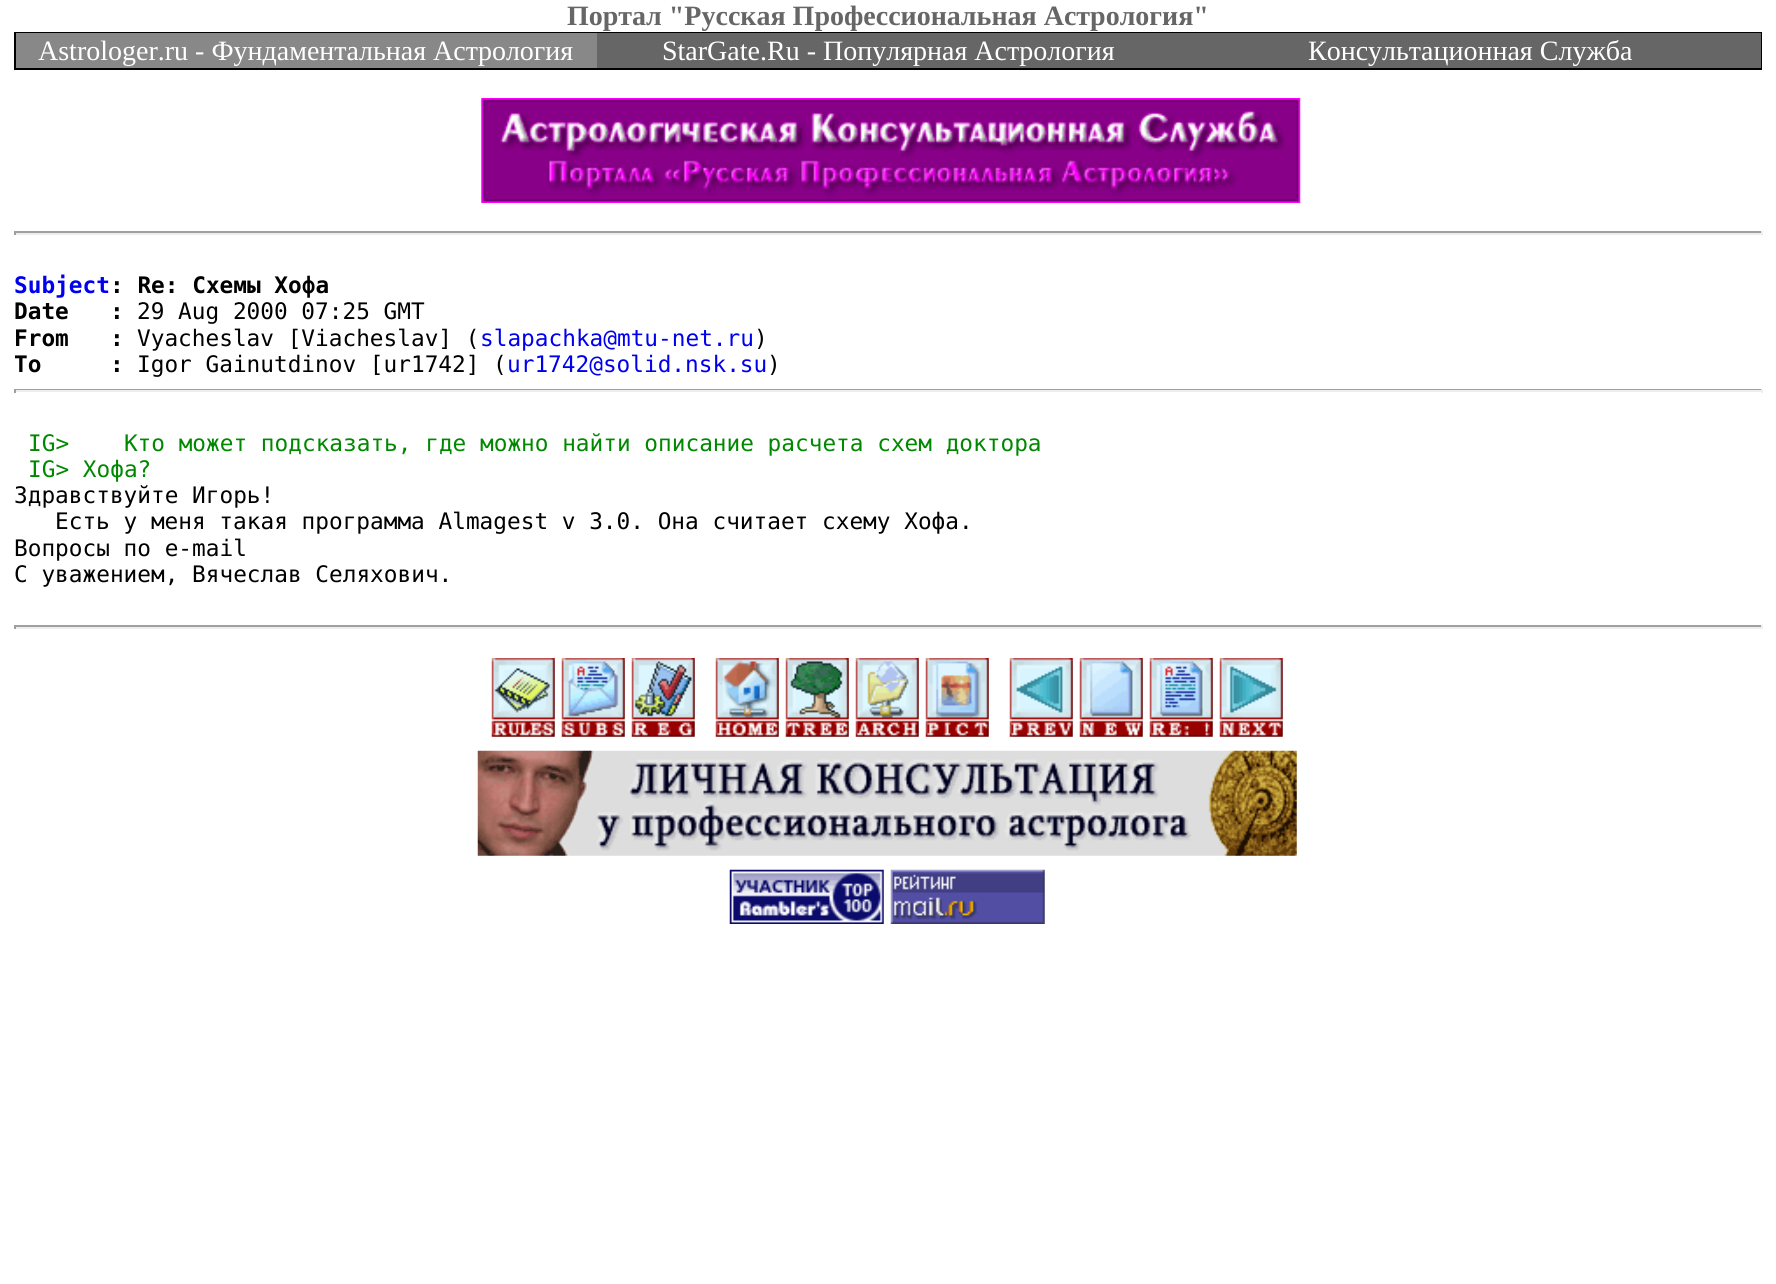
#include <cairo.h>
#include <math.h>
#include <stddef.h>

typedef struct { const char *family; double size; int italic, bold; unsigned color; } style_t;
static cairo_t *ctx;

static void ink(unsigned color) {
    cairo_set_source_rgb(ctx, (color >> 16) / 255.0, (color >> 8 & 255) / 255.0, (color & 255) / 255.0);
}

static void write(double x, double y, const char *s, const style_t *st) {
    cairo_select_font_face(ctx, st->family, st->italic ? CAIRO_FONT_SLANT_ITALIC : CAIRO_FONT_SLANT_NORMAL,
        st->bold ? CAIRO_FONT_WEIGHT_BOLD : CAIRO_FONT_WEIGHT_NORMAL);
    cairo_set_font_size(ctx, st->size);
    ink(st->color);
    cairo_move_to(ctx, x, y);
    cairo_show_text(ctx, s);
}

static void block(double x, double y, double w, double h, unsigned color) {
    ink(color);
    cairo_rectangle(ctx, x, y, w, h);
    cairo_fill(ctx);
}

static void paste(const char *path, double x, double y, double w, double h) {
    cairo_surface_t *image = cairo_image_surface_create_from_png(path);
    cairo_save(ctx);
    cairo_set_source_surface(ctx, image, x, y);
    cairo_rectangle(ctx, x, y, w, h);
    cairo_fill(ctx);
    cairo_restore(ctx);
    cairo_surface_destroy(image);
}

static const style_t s1 = {"Liberation Serif", 28, 0, 1, 0x666666};
static const style_t s2 = {"Liberation Serif", 28, 0, 0, 0xffffff};
static const style_t s3 = {"DejaVu Sans Mono", 22.75, 0, 1, 0x0000ee};
static const style_t s4 = {"DejaVu Sans Mono", 22.75, 0, 1, 0x000000};
static const style_t s5 = {"DejaVu Sans Mono", 22.75, 0, 0, 0x000000};
static const style_t s6 = {"DejaVu Sans Mono", 22.75, 0, 0, 0x0000ee};
static const style_t s7 = {"DejaVu Sans Mono", 22.75, 0, 0, 0x008800};

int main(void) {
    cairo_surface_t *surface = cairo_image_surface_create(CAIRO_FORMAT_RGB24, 1776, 1284);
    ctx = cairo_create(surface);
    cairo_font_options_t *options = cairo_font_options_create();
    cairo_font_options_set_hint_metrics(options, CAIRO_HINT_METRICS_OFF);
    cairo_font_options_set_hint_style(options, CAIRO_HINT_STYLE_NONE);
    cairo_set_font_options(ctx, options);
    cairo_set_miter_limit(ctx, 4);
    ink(0xffffff);
    cairo_paint(ctx);
    write(567, 25, "Портал \"Русская Профессиональная Астрология\"", &s1);
    block(14, 32, 1748, 38, 0x000000);
    block(597, 33, 1164, 35, 0x666666);
    block(16, 33, 581, 35, 0x888888);
    write(38, 60, "Astrologer.ru - Фундаментальная Астрология", &s2);
    write(662, 60, "StarGate.Ru - Популярная Астрология", &s2);
    write(1308, 60, "Консультационная Служба", &s2);
    paste("pic1.png", 481, 98, 820, 105);
    block(14, 231, 1748, 2, 0x9f9f9f);
    block(1761, 231, 2, 4, 0xeeeeee);
    block(14, 233, 1748, 2, 0xeeeeee);
    block(14, 231, 2, 4, 0x9f9f9f);
    write(14, 293, "Subject", &s3);
    write(110, 293, ": Re: Схемы Хофа", &s4);
    write(14, 319, "Date   :", &s4);
    write(137, 319, "29 Aug 2000 07:25 GMT", &s5);
    write(14, 346, "From   :", &s4);
    write(137, 346, "Vyacheslav [Viacheslav] (", &s5);
    write(480, 346, "slapachka@mtu-net.ru", &s6);
    write(754, 346, ")", &s5);
    write(14, 372, "To     :", &s4);
    write(137, 372, "Igor Gainutdinov [ur1742] (", &s5);
    write(507, 372, "ur1742@solid.nsk.su", &s6);
    write(767, 372, ")", &s5);
    block(14, 389, 1748, 1, 0x9f9f9f);
    block(1761, 389, 2, 4, 0xeeeeee);
    block(14, 390, 1748, 2, 0xeeeeee);
    block(14, 389, 2, 4, 0x9f9f9f);
    write(28, 451, "IG>    Кто может подсказать, где можно найти описание расчета схем доктора", &s7);
    write(28, 477, "IG> Хофа?", &s7);
    write(14, 503, "Здравствуйте Игорь!", &s5);
    write(55, 529, "Есть у меня такая программа Almagest v 3.0. Она считает схему Хофа.", &s5);
    write(14, 556, "Вопросы по e-mail", &s5);
    write(14, 582, "С уважением, Вячеслав Селяхович.", &s5);
    block(14, 625, 1748, 2, 0x9f9f9f);
    block(1761, 625, 2, 4, 0xeeeeee);
    block(14, 627, 1748, 2, 0xeeeeee);
    block(14, 625, 2, 4, 0x9f9f9f);
    paste("pic2.png", 491, 658, 64, 79);
    paste("pic3.png", 561, 658, 64, 79);
    paste("pic4.png", 631, 658, 64, 79);
    paste("pic5.png", 715, 658, 64, 79);
    paste("pic6.png", 785, 658, 64, 79);
    paste("pic7.png", 855, 658, 64, 79);
    paste("pic8.png", 925, 658, 64, 79);
    paste("pic9.png", 1009, 658, 64, 79);
    paste("pic10.png", 1079, 658, 64, 79);
    paste("pic11.png", 1149, 658, 64, 79);
    paste("pic12.png", 1219, 658, 64, 79);
    paste("pic13.png", 477, 750, 820, 106);
    paste("pic14.png", 729, 869, 155, 55);
    paste("pic15.png", 890, 869, 155, 55);
    cairo_surface_write_to_png(surface, "screenshot.png");
    cairo_font_options_destroy(options);
    cairo_destroy(ctx);
    cairo_surface_destroy(surface);
    return 0;
}
